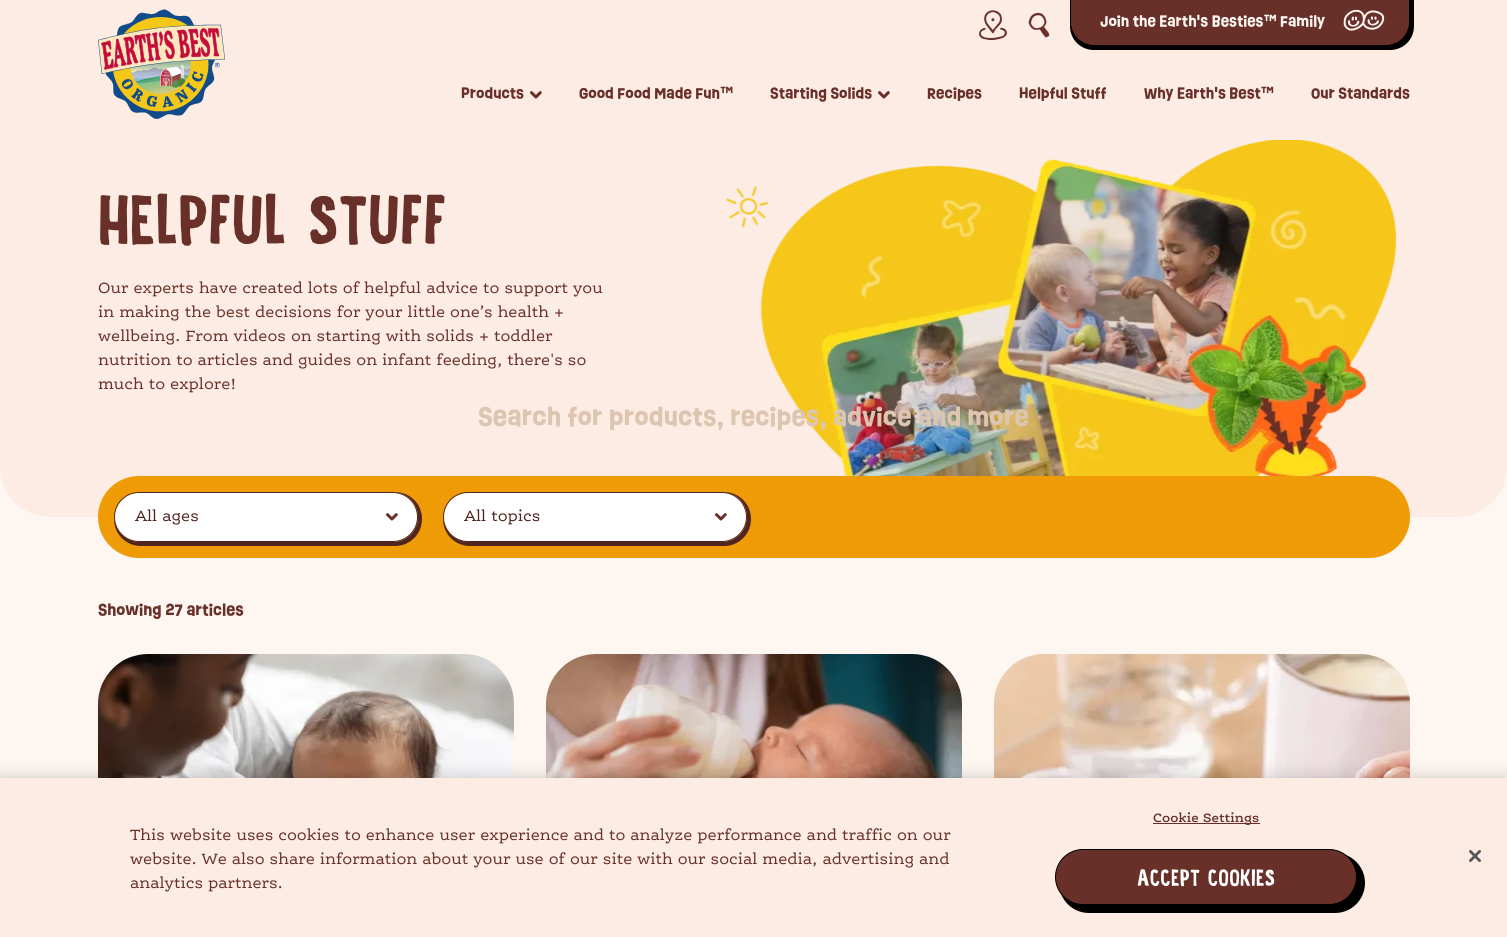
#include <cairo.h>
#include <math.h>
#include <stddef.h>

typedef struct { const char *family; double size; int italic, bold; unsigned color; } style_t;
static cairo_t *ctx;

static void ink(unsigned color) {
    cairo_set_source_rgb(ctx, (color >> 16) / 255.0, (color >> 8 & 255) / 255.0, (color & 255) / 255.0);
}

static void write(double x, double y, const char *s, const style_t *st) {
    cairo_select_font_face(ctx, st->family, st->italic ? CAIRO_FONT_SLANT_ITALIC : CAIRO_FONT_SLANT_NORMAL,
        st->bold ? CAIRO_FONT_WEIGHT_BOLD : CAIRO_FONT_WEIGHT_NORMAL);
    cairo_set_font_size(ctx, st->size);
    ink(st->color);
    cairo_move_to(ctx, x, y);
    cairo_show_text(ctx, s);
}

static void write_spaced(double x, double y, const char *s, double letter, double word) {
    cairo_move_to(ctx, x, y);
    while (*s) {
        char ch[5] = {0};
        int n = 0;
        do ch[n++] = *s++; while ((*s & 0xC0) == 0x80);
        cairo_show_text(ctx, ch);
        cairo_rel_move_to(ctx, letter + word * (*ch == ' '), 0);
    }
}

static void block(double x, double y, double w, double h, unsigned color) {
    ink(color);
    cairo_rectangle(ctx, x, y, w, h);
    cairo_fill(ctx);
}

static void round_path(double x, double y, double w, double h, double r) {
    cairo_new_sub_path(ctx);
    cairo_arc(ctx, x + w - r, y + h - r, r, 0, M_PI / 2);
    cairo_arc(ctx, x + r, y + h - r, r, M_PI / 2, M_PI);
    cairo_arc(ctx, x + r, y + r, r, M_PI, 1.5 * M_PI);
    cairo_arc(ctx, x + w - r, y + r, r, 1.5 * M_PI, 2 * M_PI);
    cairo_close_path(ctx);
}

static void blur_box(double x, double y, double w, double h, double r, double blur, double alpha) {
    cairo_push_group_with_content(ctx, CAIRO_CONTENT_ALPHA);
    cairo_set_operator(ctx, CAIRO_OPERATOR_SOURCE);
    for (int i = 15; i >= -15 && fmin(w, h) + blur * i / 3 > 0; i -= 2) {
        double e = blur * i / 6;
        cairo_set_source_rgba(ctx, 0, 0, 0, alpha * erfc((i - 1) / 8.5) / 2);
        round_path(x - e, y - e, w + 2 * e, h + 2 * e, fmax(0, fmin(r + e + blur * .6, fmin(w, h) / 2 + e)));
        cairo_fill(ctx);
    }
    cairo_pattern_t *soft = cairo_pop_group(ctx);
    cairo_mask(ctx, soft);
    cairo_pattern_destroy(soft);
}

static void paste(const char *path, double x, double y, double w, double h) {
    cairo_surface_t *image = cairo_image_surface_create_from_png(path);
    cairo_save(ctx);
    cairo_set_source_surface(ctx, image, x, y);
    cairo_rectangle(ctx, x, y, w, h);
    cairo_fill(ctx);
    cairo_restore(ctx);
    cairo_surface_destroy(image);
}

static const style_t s1 = {"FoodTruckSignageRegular", 72, 0, 0, 0x683028};
static const style_t s2 = {"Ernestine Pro", 16, 0, 0, 0x683028};
static const style_t s3 = {"Ernestine Pro", 16, 0, 0, 0x51251f};
static const style_t s4 = {"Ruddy", 15, 0, 1, 0x683028};
static const style_t s5 = {"Ruddy", 14, 0, 1, 0xfdf6f1};
static const style_t s6 = {"Ruddy", 14, 0, 1, 0x683028};
static const style_t s7 = {"Ruddy", 24, 0, 1, 0xddc6b1};

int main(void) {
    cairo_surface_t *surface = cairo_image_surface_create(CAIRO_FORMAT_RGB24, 1507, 937);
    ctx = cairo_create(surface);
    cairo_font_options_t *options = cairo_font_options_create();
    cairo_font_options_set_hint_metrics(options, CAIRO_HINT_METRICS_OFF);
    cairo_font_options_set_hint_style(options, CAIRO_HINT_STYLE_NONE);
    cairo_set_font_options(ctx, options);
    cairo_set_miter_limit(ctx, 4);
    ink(0xfcece3);
    cairo_paint(ctx);
    block(0, 467, 1507, 311, 0xfdf6f1);
    ink(0xfcece3);
    cairo_new_path(ctx);
    cairo_move_to(ctx, 0, 137);
    cairo_line_to(ctx, 1507, 137);
    cairo_line_to(ctx, 1507, 467);
    cairo_curve_to(ctx, 1507, 494.5, 1484.5, 517, 1457, 517);
    cairo_line_to(ctx, 50, 517);
    cairo_curve_to(ctx, 22.5, 517, 0, 494.5, 0, 467);
    cairo_close_path(ctx);
    cairo_fill(ctx);
    write(98, 245, "HELPFUL STUFF", &s1);
    write(98, 293, "Our experts have created lots of helpful advice to support you", &s2);
    write(98, 317, "in making the best decisions for your little one’s health +", &s2);
    write(98, 341, "wellbeing. From videos on starting with solids + toddler", &s2);
    write(98, 365, "nutrition to articles and guides on infant feeding, there's so", &s2);
    write(98, 389, "much to explore!", &s2);
    paste("pic1.png", 725, 140, 672, 336);
    ink(0xef9b05);
    round_path(98, 476, 1312, 82, 41);
    cairo_fill(ctx);
    ink(0x51251f);
    cairo_new_path(ctx);
    cairo_move_to(ctx, 395, 492);
    cairo_line_to(ctx, 393, 492);
    cairo_curve_to(ctx, 407, 492, 418, 503, 418, 517);
    cairo_curve_to(ctx, 418, 531, 407, 542, 393, 542);
    cairo_line_to(ctx, 139, 542);
    cairo_curve_to(ctx, 126, 542, 115, 531, 114, 518);
    cairo_line_to(ctx, 114, 519);
    cairo_curve_to(ctx, 114, 534, 126, 546, 141, 546);
    cairo_line_to(ctx, 395, 546);
    cairo_curve_to(ctx, 410, 546, 422, 534, 422, 519);
    cairo_curve_to(ctx, 422, 504, 410, 492, 395, 492);
    cairo_close_path(ctx);
    cairo_fill(ctx);
    ink(0xffffff);
    round_path(114.5, 492.5, 303, 49, 24.5);
    cairo_fill_preserve(ctx);
    ink(0x51251f);
    cairo_set_line_width(ctx, 1);
    cairo_stroke(ctx);
    write(135, 521, "All ages", &s3);
    paste("pic2.png", 386, 513, 12, 8);
    cairo_new_path(ctx);
    cairo_move_to(ctx, 724, 492);
    cairo_line_to(ctx, 722, 492);
    cairo_curve_to(ctx, 736, 492, 747, 503, 747, 517);
    cairo_curve_to(ctx, 747, 531, 736, 542, 722, 542);
    cairo_line_to(ctx, 468, 542);
    cairo_curve_to(ctx, 455, 542, 444, 531, 443, 518);
    cairo_line_to(ctx, 443, 519);
    cairo_curve_to(ctx, 443, 534, 455, 546, 470, 546);
    cairo_line_to(ctx, 724, 546);
    cairo_curve_to(ctx, 739, 546, 751, 534, 751, 519);
    cairo_curve_to(ctx, 751, 504, 739, 492, 724, 492);
    cairo_close_path(ctx);
    cairo_fill(ctx);
    ink(0xffffff);
    round_path(443.5, 492.5, 303, 49, 24.5);
    cairo_fill_preserve(ctx);
    ink(0x51251f);
    cairo_stroke(ctx);
    write(464, 521, "All topics", &s3);
    paste("pic2.png", 715, 513, 12, 8);
    write(98, 615, "Showing 27 articles", &s4);
    ink(0xfcece3);
    round_path(98, 654, 416, 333, 50);
    cairo_fill(ctx);
    paste("pic3.png", 98, 654, 416, 124);
    round_path(546, 654, 416, 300, 50);
    cairo_fill(ctx);
    paste("pic4.png", 546, 654, 416, 124);
    round_path(994, 654, 416, 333, 50);
    cairo_fill(ctx);
    paste("pic5.png", 994, 654, 416, 124);
    paste("pic6.png", 98, 9, 127, 110);
    paste("pic7.png", 979, 10, 28, 31);
    paste("pic8.png", 1028, 12, 22, 26);
    ink(0x000000);
    cairo_new_path(ctx);
    cairo_move_to(ctx, 1070, -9);
    cairo_line_to(ctx, 1414, -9);
    cairo_line_to(ctx, 1414, 26);
    cairo_curve_to(ctx, 1414, 39.5, 1403.5, 50, 1390, 50);
    cairo_line_to(ctx, 1094, 50);
    cairo_curve_to(ctx, 1080.5, 50, 1070, 39.5, 1070, 26);
    cairo_close_path(ctx);
    cairo_fill(ctx);
    ink(0x683028);
    cairo_new_path(ctx);
    cairo_move_to(ctx, 1070.5, -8.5);
    cairo_line_to(ctx, 1409.5, -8.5);
    cairo_line_to(ctx, 1409.5, 22);
    cairo_curve_to(ctx, 1409.5, 35, 1399, 45.5, 1386, 45.5);
    cairo_line_to(ctx, 1094, 45.5);
    cairo_curve_to(ctx, 1081, 45.5, 1070.5, 35, 1070.5, 22);
    cairo_close_path(ctx);
    cairo_fill_preserve(ctx);
    ink(0x000000);
    cairo_stroke(ctx);
    write(1100, 26, "Join the Earth's Besties™ Family", &s5);
    paste("pic9.png", 1343, 9, 42, 22);
    write(461, 98, "Products", &s6);
    paste("pic10.png", 530, 91, 12, 8);
    write(579, 98, "Good Food Made Fun™", &s6);
    write(770, 98, "Starting Solids", &s6);
    paste("pic10.png", 878, 91, 12, 8);
    write(927, 98, "Recipes", &s6);
    write(1019, 98, "Helpful Stuff", &s6);
    write(1144, 98, "Why Earth's Best™", &s6);
    write(1311, 98, "Our Standards", &s6);
    write(478, 425, "Search for products, recipes, advice and more", &s7);
    ink(0x000000);
    blur_box(0, 778, 1507, 159, 0, 9, 0.2);
    block(0, 778, 1507, 159, 0xfcece3);
    write(130, 840, "This website uses cookies to enhance user experience and to analyze performance and traffic on our", &s2);
    write(130, 864, "website. We also share information about your use of our site with our social media, advertising and", &s2);
    write(130, 888, "analytics partners.", &s2);
    block(1153, 823, 107, 1, 0x683028);
    cairo_select_font_face(ctx, "Ernestine Pro SemiBold", CAIRO_FONT_SLANT_NORMAL, CAIRO_FONT_WEIGHT_NORMAL);
    cairo_set_font_size(ctx, 13);
    write_spaced(1153, 822, "Cookie Settings", 0.1, 0);
    ink(0x000000);
    round_path(1059, 853, 306, 60, 30);
    cairo_fill(ctx);
    ink(0x683028);
    round_path(1055.5, 849.5, 301, 55, 27.5);
    cairo_fill_preserve(ctx);
    ink(0x000000);
    cairo_stroke(ctx);
    cairo_select_font_face(ctx, "FoodTruckSignageRegular", CAIRO_FONT_SLANT_NORMAL, CAIRO_FONT_WEIGHT_NORMAL);
    cairo_set_font_size(ctx, 24);
    ink(0xffffff);
    write_spaced(1137, 886, "ACCEPT COOKIES", 0.25, 0);
    paste("pic11.png", 1469, 850, 12, 12);
    cairo_surface_write_to_png(surface, "screenshot.png");
    cairo_font_options_destroy(options);
    cairo_destroy(ctx);
    cairo_surface_destroy(surface);
    return 0;
}
